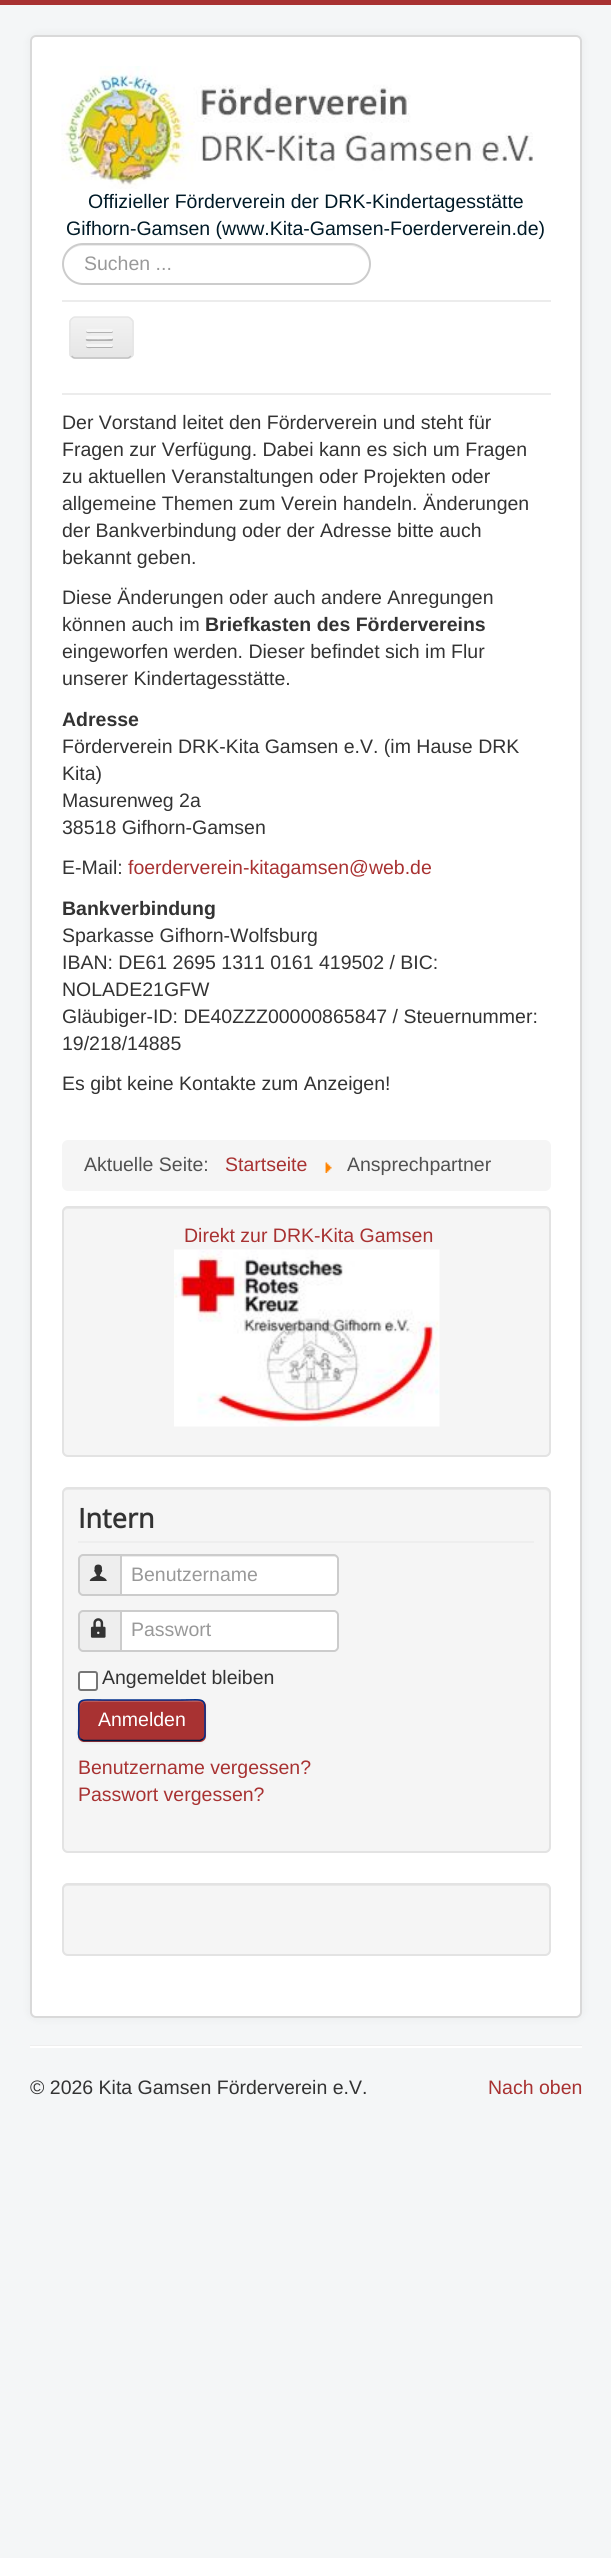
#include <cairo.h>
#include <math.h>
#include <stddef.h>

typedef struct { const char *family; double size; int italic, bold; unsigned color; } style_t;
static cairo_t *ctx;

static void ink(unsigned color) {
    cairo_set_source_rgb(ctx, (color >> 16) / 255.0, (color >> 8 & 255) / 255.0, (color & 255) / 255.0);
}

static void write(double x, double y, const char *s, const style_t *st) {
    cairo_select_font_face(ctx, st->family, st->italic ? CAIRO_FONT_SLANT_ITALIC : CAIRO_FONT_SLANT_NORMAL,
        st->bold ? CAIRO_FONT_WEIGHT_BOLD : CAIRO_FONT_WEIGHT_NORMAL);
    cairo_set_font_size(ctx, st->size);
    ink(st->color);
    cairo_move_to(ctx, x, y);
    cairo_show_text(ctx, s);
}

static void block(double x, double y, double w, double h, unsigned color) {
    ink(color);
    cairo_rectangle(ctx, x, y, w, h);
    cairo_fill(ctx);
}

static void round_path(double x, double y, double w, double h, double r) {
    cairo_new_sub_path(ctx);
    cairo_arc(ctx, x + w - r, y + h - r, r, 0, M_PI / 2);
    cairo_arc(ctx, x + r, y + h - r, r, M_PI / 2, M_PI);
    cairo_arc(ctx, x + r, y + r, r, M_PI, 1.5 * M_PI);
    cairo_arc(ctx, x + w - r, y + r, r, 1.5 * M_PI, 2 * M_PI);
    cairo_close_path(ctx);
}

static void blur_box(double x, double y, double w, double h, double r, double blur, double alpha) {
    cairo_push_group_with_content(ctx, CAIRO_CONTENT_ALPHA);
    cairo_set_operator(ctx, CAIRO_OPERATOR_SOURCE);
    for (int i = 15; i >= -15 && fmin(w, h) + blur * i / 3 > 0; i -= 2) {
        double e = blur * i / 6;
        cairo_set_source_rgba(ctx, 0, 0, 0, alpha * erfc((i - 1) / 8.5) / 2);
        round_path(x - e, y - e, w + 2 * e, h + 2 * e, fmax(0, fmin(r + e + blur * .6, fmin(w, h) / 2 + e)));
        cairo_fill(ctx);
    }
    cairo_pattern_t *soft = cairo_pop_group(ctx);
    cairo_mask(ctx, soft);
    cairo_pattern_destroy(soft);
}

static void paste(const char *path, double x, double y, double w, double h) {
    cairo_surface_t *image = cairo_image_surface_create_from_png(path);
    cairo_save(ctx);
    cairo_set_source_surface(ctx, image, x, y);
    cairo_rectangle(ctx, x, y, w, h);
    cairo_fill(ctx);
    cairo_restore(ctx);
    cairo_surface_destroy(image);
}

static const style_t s1 = {"Liberation Sans", 19.5, 0, 0, 0x001a27};
static const style_t s2 = {"Liberation Sans", 19.5, 0, 0, 0x999999};
static const style_t s3 = {"Liberation Sans", 19.5, 0, 0, 0x333333};
static const style_t s4 = {"Liberation Sans", 19.5, 0, 1, 0x333333};
static const style_t s5 = {"Liberation Sans", 19.5, 0, 0, 0xa83232};
static const style_t s6 = {"Liberation Sans", 19.5, 0, 0, 0x515151};
static const style_t s7 = {"Open Sans", 27, 0, 1, 0x333333};
static const style_t s8 = {"Liberation Sans", 19.5, 0, 0, 0xffffff};

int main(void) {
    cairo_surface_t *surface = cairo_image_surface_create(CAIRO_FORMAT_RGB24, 611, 2558);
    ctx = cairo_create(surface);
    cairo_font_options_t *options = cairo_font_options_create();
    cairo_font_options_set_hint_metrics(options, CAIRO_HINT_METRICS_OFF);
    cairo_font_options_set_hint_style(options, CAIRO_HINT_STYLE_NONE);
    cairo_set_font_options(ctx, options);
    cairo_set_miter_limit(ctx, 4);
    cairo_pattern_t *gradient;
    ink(0xf4f6f7);
    cairo_paint(ctx);
    block(0, 0, 611, 5, 0xa83232);
    ink(0x000000);
    blur_box(30, 35, 552, 1983, 6, 4.5, 0.05);
    ink(0xffffff);
    round_path(30, 35, 552, 1983, 6);
    cairo_fill(ctx);
    round_path(31, 36, 550, 1981, 5);
    cairo_set_source_rgba(ctx, 0, 0, 0, 0.15);
    cairo_stroke(ctx);
    paste("pic1.png", 61, 66, 472, 123);
    write(88, 208, "Offizieller Förderverein der DRK-Kindertagesstätte", &s1);
    write(66, 235, "Gifhorn-Gamsen (www.Kita-Gamsen-Foerderverein.de)", &s1);
    ink(0xececec);
    cairo_new_path(ctx);
    cairo_move_to(ctx, 82, 246);
    cairo_line_to(ctx, 350, 246);
    cairo_curve_to(ctx, 360, 246, 369, 255, 369, 265);
    cairo_curve_to(ctx, 369, 254, 360, 245, 350, 245);
    cairo_line_to(ctx, 82, 245);
    cairo_curve_to(ctx, 72, 245, 63, 254, 63, 265);
    cairo_curve_to(ctx, 63, 255, 72, 246, 82, 246);
    cairo_close_path(ctx);
    cairo_fill(ctx);
    round_path(63, 244, 307, 40, 20);
    ink(0xcccccc);
    cairo_stroke(ctx);
    write(84, 270, "Suchen ...", &s2);
    block(62, 300, 489, 2, 0xececec);
    block(62, 393, 489, 2, 0xececec);
    ink(0xededed);
    round_path(69, 317, 65, 42, 6);
    cairo_fill(ctx);
    cairo_save(ctx);
    round_path(69, 317, 65, 42, 6);
    cairo_clip(ctx);
    gradient = cairo_pattern_create_linear(101, 318, 101, 357);
    cairo_pattern_add_color_stop_rgba(gradient, 0, 0.949, 0.949, 0.949, 1);
    cairo_pattern_add_color_stop_rgba(gradient, 1, 0.902, 0.902, 0.902, 1);
    cairo_set_source(ctx, gradient);
    cairo_pattern_destroy(gradient);
    cairo_rectangle(ctx, 69, 318, 65, 39);
    cairo_fill(ctx);
    cairo_restore(ctx);
    cairo_new_path(ctx);
    cairo_move_to(ctx, 131, 356);
    cairo_curve_to(ctx, 130, 357, 129, 358, 127.5, 358);
    cairo_line_to(ctx, 75, 358);
    cairo_curve_to(ctx, 73.5, 358, 72.5, 357, 71.5, 356);
    ink(0xbfbfbf);
    cairo_set_line_width(ctx, 1.5);
    cairo_stroke(ctx);
    cairo_new_path(ctx);
    cairo_move_to(ctx, 71.5, 356);
    cairo_curve_to(ctx, 70.5, 355, 70, 354, 70, 352.5);
    cairo_line_to(ctx, 70, 322.5);
    cairo_curve_to(ctx, 70, 321, 70.5, 320, 71.5, 319);
    cairo_curve_to(ctx, 72.5, 318, 73.5, 317, 75, 317);
    cairo_line_to(ctx, 127.5, 317);
    cairo_curve_to(ctx, 129, 317, 130, 318, 131, 319);
    cairo_curve_to(ctx, 132, 320, 133, 321, 133, 322.5);
    cairo_line_to(ctx, 133, 352.5);
    cairo_curve_to(ctx, 133, 354, 132, 355, 131, 356);
    ink(0xe6e6e6);
    cairo_stroke(ctx);
    ink(0xb3b3b3);
    cairo_new_path(ctx);
    cairo_move_to(ctx, 86, 331);
    cairo_curve_to(ctx, 85.5, 334, 91, 333, 91.5, 333);
    cairo_line_to(ctx, 111.5, 333);
    cairo_curve_to(ctx, 113, 333, 113.5, 331, 112.5, 330.5);
    cairo_line_to(ctx, 111.5, 331.5);
    cairo_curve_to(ctx, 110, 332, 86.5, 331.5, 86, 331);
    cairo_close_path(ctx);
    cairo_fill(ctx);
    ink(0xf5f5f5);
    round_path(86, 329, 27, 3, 1.5);
    cairo_fill(ctx);
    ink(0xb0b0b0);
    cairo_new_path(ctx);
    cairo_move_to(ctx, 86, 339);
    cairo_curve_to(ctx, 84.5, 342, 91.5, 341, 91.5, 341);
    cairo_line_to(ctx, 112, 341);
    cairo_curve_to(ctx, 113, 340.5, 113.5, 339, 112.5, 338);
    cairo_line_to(ctx, 111, 339);
    cairo_curve_to(ctx, 109, 339.5, 87, 339.5, 86, 339);
    cairo_close_path(ctx);
    cairo_fill(ctx);
    ink(0xf5f5f5);
    round_path(86, 336, 27, 3, 1.5);
    cairo_fill(ctx);
    ink(0xafafaf);
    cairo_new_path(ctx);
    cairo_move_to(ctx, 86, 346);
    cairo_curve_to(ctx, 85.5, 349, 91, 348, 91.5, 348);
    cairo_line_to(ctx, 111.5, 348);
    cairo_curve_to(ctx, 113, 348, 113.5, 346, 112.5, 345.5);
    cairo_line_to(ctx, 111.5, 346.5);
    cairo_curve_to(ctx, 110, 347, 86.5, 346.5, 86, 346);
    cairo_close_path(ctx);
    cairo_fill(ctx);
    ink(0xf5f5f5);
    round_path(86, 344, 27, 3, 1.5);
    cairo_fill(ctx);
    write(62, 429, "Der Vorstand leitet den Förderverein und steht für", &s3);
    write(62, 456, "Fragen zur Verfügung. Dabei kann es sich um Fragen", &s3);
    write(62, 483, "zu aktuellen Veranstaltungen oder Projekten oder", &s3);
    write(62, 510, "allgemeine Themen zum Verein handeln. Änderungen", &s3);
    write(62, 537, "der Bankverbindung oder der Adresse bitte auch", &s3);
    write(62, 564, "bekannt geben.", &s3);
    write(62, 604, "Diese Änderungen oder auch andere Anregungen", &s3);
    write(62, 631, "können auch im", &s3);
    write(205, 631, "Briefkasten des Fördervereins", &s4);
    write(62, 658, "eingeworfen werden. Dieser befindet sich im Flur", &s3);
    write(62, 685, "unserer Kindertagesstätte.", &s3);
    write(62, 726, "Adresse", &s4);
    write(62, 753, "Förderverein DRK-Kita Gamsen e.V. (im Hause DRK", &s3);
    write(62, 780, "Kita)", &s3);
    write(62, 807, "Masurenweg 2a", &s3);
    write(62, 834, "38518 Gifhorn-Gamsen", &s3);
    write(62, 874, "E-Mail:", &s3);
    write(128, 874, "foerderverein-kitagamsen@web.de", &s5);
    write(62, 915, "Bankverbindung", &s4);
    write(62, 942, "Sparkasse Gifhorn-Wolfsburg", &s3);
    write(62, 969, "IBAN: DE61 2695 1311 0161 419502 / BIC:", &s3);
    write(62, 996, "NOLADE21GFW", &s3);
    write(62, 1023, "Gläubiger-ID: DE40ZZZ00000865847 / Steuernummer:", &s3);
    write(62, 1050, "19/218/14885", &s3);
    write(62, 1090, "Es gibt keine Kontakte zum Anzeigen!", &s3);
    ink(0xf5f5f5);
    round_path(62, 1140, 489, 51, 6);
    cairo_fill(ctx);
    write(84, 1171, "Aktuelle Seite:", &s6);
    write(225, 1171, "Startseite", &s5);
    paste("pic2.png", 325, 1162, 7, 11);
    write(347, 1171, "Ansprechpartner", &s6);
    ink(0xf5f5f5);
    round_path(62, 1206, 489, 251, 6);
    cairo_fill(ctx);
    ink(0xe9e9e9);
    cairo_new_path(ctx);
    cairo_move_to(ctx, 68, 1209);
    cairo_line_to(ctx, 544, 1209);
    cairo_curve_to(ctx, 547, 1209, 549, 1211, 549, 1214);
    cairo_line_to(ctx, 549, 1213);
    cairo_curve_to(ctx, 549, 1210, 547, 1208, 544, 1208);
    cairo_line_to(ctx, 68, 1208);
    cairo_curve_to(ctx, 65, 1208, 63, 1210, 63, 1213);
    cairo_line_to(ctx, 63, 1214);
    cairo_curve_to(ctx, 63, 1211, 65, 1209, 68, 1209);
    cairo_close_path(ctx);
    cairo_fill(ctx);
    round_path(63, 1207, 487, 249, 5);
    ink(0xe3e3e3);
    cairo_set_line_width(ctx, 2);
    cairo_stroke(ctx);
    write(184, 1242, "Direkt zur DRK-Kita Gamsen", &s5);
    paste("pic3.png", 174, 1249, 266, 178);
    ink(0xf5f5f5);
    round_path(62, 1487, 489, 366, 6);
    cairo_fill(ctx);
    ink(0xe9e9e9);
    cairo_new_path(ctx);
    cairo_move_to(ctx, 68, 1490);
    cairo_line_to(ctx, 544, 1490);
    cairo_curve_to(ctx, 547, 1490, 549, 1492, 549, 1494);
    cairo_line_to(ctx, 549, 1493);
    cairo_curve_to(ctx, 549, 1490, 547, 1488, 544, 1488);
    cairo_line_to(ctx, 68, 1488);
    cairo_curve_to(ctx, 65, 1488, 63, 1490, 63, 1493);
    cairo_line_to(ctx, 63, 1494);
    cairo_curve_to(ctx, 63, 1492, 65, 1490, 68, 1490);
    cairo_close_path(ctx);
    cairo_fill(ctx);
    round_path(63, 1488, 487, 364, 5);
    ink(0xe3e3e3);
    cairo_stroke(ctx);
    block(78, 1541, 456, 2, 0xeeeeee);
    write(78, 1528, "Intern", &s7);
    ink(0xeeeeee);
    cairo_new_path(ctx);
    cairo_move_to(ctx, 83, 1555);
    cairo_line_to(ctx, 121, 1555);
    cairo_line_to(ctx, 121, 1595);
    cairo_line_to(ctx, 83, 1595);
    cairo_curve_to(ctx, 81, 1595, 79, 1593, 79, 1591);
    cairo_line_to(ctx, 79, 1559);
    cairo_curve_to(ctx, 79, 1557, 81, 1555, 83, 1555);
    cairo_close_path(ctx);
    cairo_fill_preserve(ctx);
    ink(0xcccccc);
    cairo_stroke(ctx);
    paste("pic4.png", 89, 1564, 18, 17);
    ink(0xffffff);
    cairo_new_path(ctx);
    cairo_move_to(ctx, 120, 1554);
    cairo_line_to(ctx, 334, 1554);
    cairo_curve_to(ctx, 337, 1554, 339, 1556, 339, 1559);
    cairo_line_to(ctx, 339, 1591);
    cairo_curve_to(ctx, 339, 1594, 337, 1596, 334, 1596);
    cairo_line_to(ctx, 120, 1596);
    cairo_close_path(ctx);
    cairo_fill(ctx);
    ink(0xececec);
    cairo_new_path(ctx);
    cairo_move_to(ctx, 122, 1557);
    cairo_line_to(ctx, 334, 1557);
    cairo_curve_to(ctx, 336, 1557, 338, 1558, 338, 1560);
    cairo_line_to(ctx, 338, 1559);
    cairo_curve_to(ctx, 338, 1557, 337, 1556, 335, 1556);
    cairo_line_to(ctx, 122, 1556);
    cairo_close_path(ctx);
    cairo_fill(ctx);
    cairo_new_path(ctx);
    cairo_move_to(ctx, 121, 1555);
    cairo_line_to(ctx, 334, 1555);
    cairo_curve_to(ctx, 336, 1555, 338, 1557, 338, 1559);
    cairo_line_to(ctx, 338, 1591);
    cairo_curve_to(ctx, 338, 1593, 336, 1595, 334, 1595);
    cairo_line_to(ctx, 121, 1595);
    cairo_close_path(ctx);
    ink(0xcccccc);
    cairo_stroke(ctx);
    write(131, 1581, "Benutzername", &s2);
    ink(0xeeeeee);
    cairo_new_path(ctx);
    cairo_move_to(ctx, 83, 1611);
    cairo_line_to(ctx, 121, 1611);
    cairo_line_to(ctx, 121, 1651);
    cairo_line_to(ctx, 83, 1651);
    cairo_curve_to(ctx, 81, 1651, 79, 1649, 79, 1647);
    cairo_line_to(ctx, 79, 1615);
    cairo_curve_to(ctx, 79, 1613, 81, 1611, 83, 1611);
    cairo_close_path(ctx);
    cairo_fill_preserve(ctx);
    ink(0xcccccc);
    cairo_stroke(ctx);
    paste("pic5.png", 90, 1618, 16, 20);
    ink(0xffffff);
    cairo_new_path(ctx);
    cairo_move_to(ctx, 121, 1611);
    cairo_line_to(ctx, 334, 1611);
    cairo_curve_to(ctx, 336, 1611, 338, 1613, 338, 1615);
    cairo_line_to(ctx, 338, 1647);
    cairo_curve_to(ctx, 338, 1649, 336, 1651, 334, 1651);
    cairo_line_to(ctx, 121, 1651);
    cairo_close_path(ctx);
    cairo_fill_preserve(ctx);
    ink(0xcccccc);
    cairo_stroke(ctx);
    write(131, 1636, "Passwort", &s2);
    ink(0xffffff);
    round_path(79, 1672, 18, 18, 2);
    cairo_fill_preserve(ctx);
    ink(0x767676);
    cairo_stroke(ctx);
    write(102, 1684, "Angemeldet bleiben", &s3);
    ink(0x000000);
    blur_box(78, 1701, 128, 42, 6, 1.5, 0.05);
    ink(0xa83232);
    round_path(78, 1700, 128, 42, 6);
    cairo_fill(ctx);
    ink(0xb95b5b);
    cairo_new_path(ctx);
    cairo_move_to(ctx, 84, 1702);
    cairo_line_to(ctx, 200, 1702);
    cairo_curve_to(ctx, 202, 1702, 204, 1705, 204, 1707);
    cairo_curve_to(ctx, 204, 1696, 184, 1701, 180, 1701);
    cairo_line_to(ctx, 104, 1701);
    cairo_curve_to(ctx, 100, 1701, 80, 1696, 80, 1707);
    cairo_curve_to(ctx, 80, 1705, 82, 1702, 84, 1702);
    cairo_close_path(ctx);
    cairo_fill(ctx);
    cairo_new_path(ctx);
    cairo_move_to(ctx, 203, 1739);
    cairo_line_to(ctx, 200, 1740.5);
    cairo_line_to(ctx, 83.5, 1740.5);
    cairo_line_to(ctx, 80.5, 1739);
    ink(0x001641);
    cairo_set_line_width(ctx, 1.5);
    cairo_stroke(ctx);
    cairo_new_path(ctx);
    cairo_move_to(ctx, 80.5, 1739);
    cairo_curve_to(ctx, 77, 1736, 79, 1729, 79, 1725.5);
    cairo_curve_to(ctx, 79, 1696.5, 74, 1700, 103, 1700);
    cairo_line_to(ctx, 180, 1700);
    cairo_curve_to(ctx, 207, 1700, 205, 1696, 205, 1720.5);
    cairo_line_to(ctx, 205, 1730.5);
    cairo_curve_to(ctx, 205, 1733.5, 205.5, 1737, 203, 1739);
    ink(0x002f8d);
    cairo_stroke(ctx);
    write(98, 1726, "Anmelden", &s8);
    write(78, 1774, "Benutzername vergessen?", &s5);
    write(78, 1801, "Passwort vergessen?", &s5);
    ink(0xf5f5f5);
    round_path(62, 1883, 489, 73, 6);
    cairo_fill(ctx);
    ink(0xe9e9e9);
    cairo_new_path(ctx);
    cairo_move_to(ctx, 68, 1886);
    cairo_line_to(ctx, 544, 1886);
    cairo_curve_to(ctx, 547, 1886, 549, 1888, 549, 1890);
    cairo_line_to(ctx, 549, 1889);
    cairo_curve_to(ctx, 549, 1886, 547, 1884, 544, 1884);
    cairo_line_to(ctx, 68, 1884);
    cairo_curve_to(ctx, 65, 1884, 63, 1886, 63, 1889);
    cairo_line_to(ctx, 63, 1890);
    cairo_curve_to(ctx, 63, 1888, 65, 1886, 68, 1886);
    cairo_close_path(ctx);
    cairo_fill(ctx);
    round_path(63, 1884, 487, 71, 5);
    ink(0xe3e3e3);
    cairo_set_line_width(ctx, 2);
    cairo_stroke(ctx);
    block(30, 2045, 552, 1, 0xeeeeee);
    block(30, 2046, 552, 2, 0xffffff);
    write(30, 2094, "© 2026 Kita Gamsen Förderverein e.V.", &s3);
    write(488, 2094, "Nach oben", &s5);
    cairo_surface_write_to_png(surface, "screenshot.png");
    cairo_font_options_destroy(options);
    cairo_destroy(ctx);
    cairo_surface_destroy(surface);
    return 0;
}
